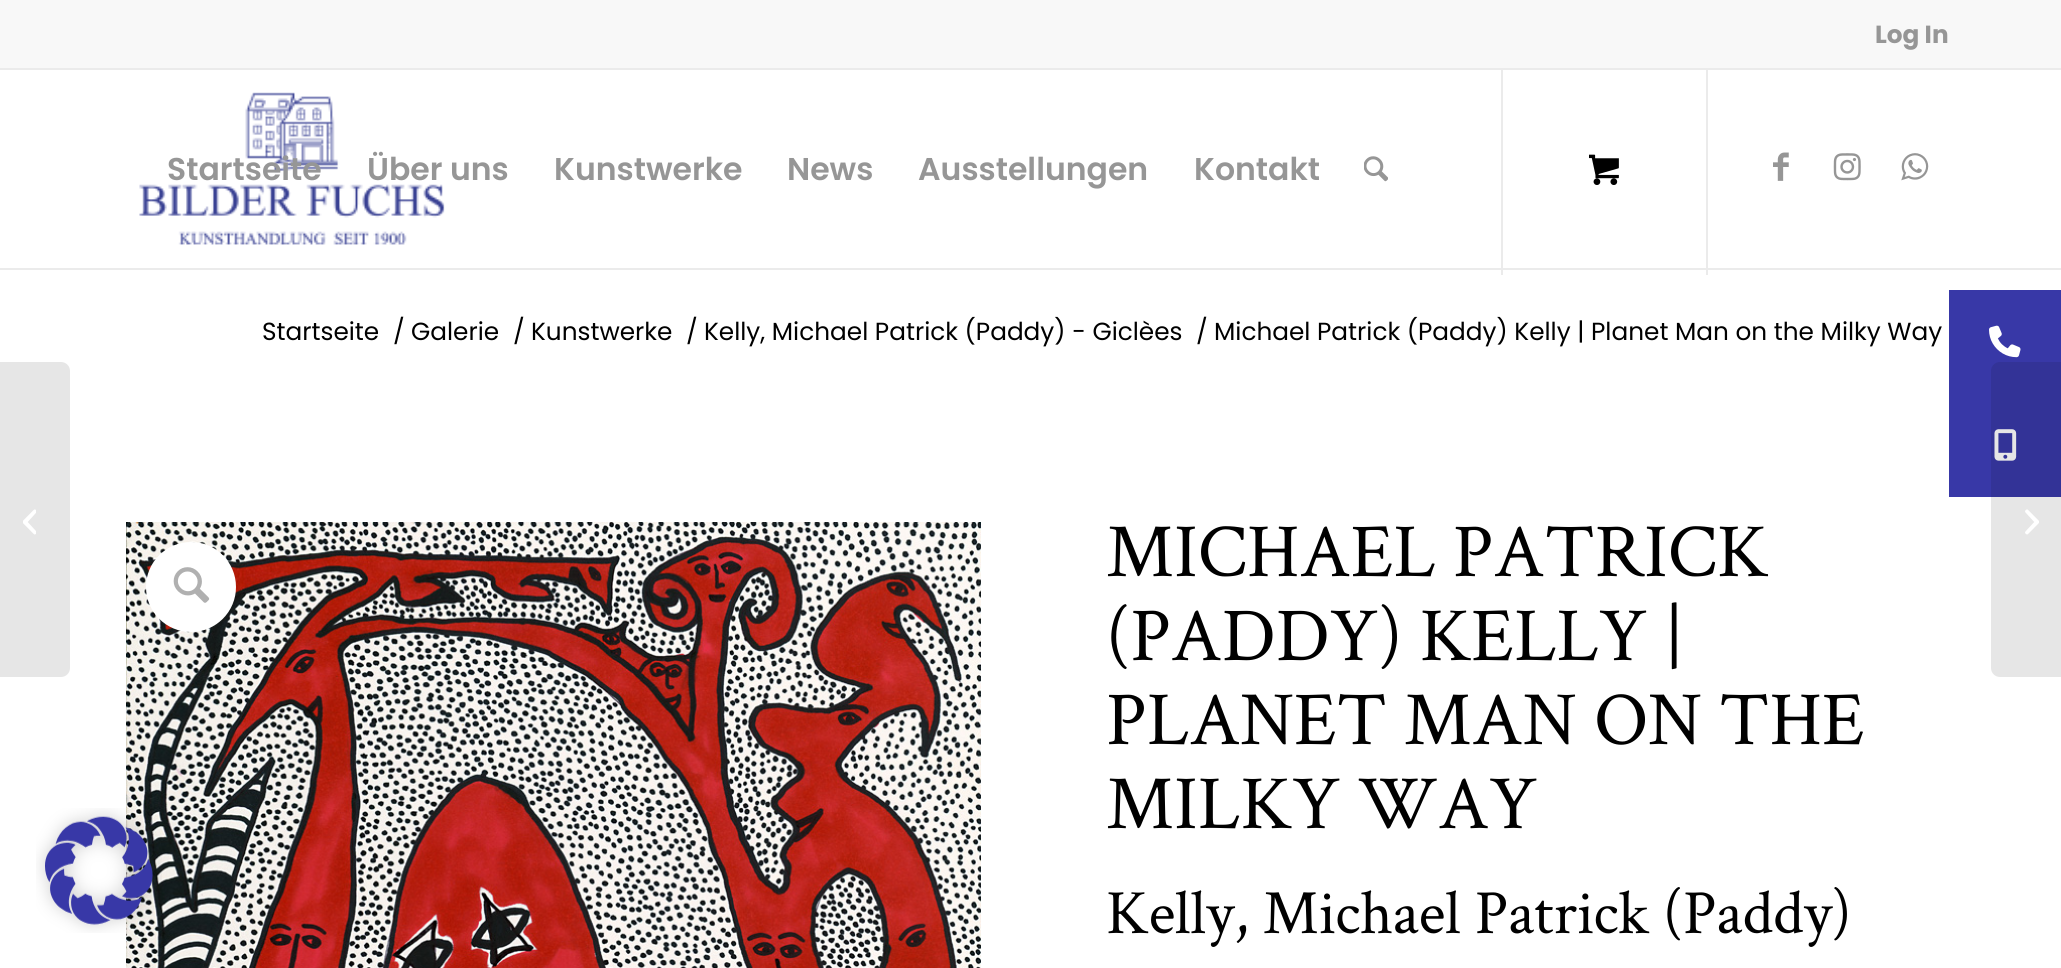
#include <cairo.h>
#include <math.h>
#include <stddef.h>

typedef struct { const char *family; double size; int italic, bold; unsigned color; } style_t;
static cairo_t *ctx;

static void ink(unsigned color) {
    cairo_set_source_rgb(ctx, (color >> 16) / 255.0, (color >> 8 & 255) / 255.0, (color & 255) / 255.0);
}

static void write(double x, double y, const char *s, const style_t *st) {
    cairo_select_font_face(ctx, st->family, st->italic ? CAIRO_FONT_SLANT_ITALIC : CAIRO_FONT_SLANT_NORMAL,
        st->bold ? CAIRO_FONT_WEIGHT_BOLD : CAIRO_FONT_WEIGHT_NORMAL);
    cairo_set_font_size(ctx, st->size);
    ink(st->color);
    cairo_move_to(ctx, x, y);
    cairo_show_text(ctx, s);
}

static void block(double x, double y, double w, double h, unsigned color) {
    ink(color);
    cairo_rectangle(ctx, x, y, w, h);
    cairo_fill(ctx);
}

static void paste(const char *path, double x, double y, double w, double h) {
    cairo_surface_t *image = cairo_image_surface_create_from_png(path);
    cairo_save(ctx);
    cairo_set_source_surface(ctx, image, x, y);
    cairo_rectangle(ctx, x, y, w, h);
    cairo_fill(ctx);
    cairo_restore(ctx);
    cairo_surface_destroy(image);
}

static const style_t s1 = {"Poppins", 24.75, 0, 1, 0x969696};
static const style_t s2 = {"Poppins SemiBold", 31.5, 0, 0, 0x969696};
static const style_t s3 = {"Poppins", 24.75, 0, 0, 0x000000};
static const style_t s4 = {"Crimson Text", 76.5, 0, 0, 0x000000};
static const style_t s5 = {"Crimson Text", 63, 0, 0, 0x000000};

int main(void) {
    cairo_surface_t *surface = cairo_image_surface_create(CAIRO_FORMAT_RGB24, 2061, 968);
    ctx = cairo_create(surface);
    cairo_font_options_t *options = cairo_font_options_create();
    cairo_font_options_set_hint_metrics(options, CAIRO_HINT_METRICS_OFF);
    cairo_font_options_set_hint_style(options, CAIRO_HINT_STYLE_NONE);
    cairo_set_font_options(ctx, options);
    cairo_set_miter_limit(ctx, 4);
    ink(0xffffff);
    cairo_paint(ctx);
    block(0, 0, 2061, 68, 0xf8f8f8);
    block(0, 68, 2061, 2, 0xebebeb);
    write(1875, 43, "Log In", &s1);
    block(0, 268, 2061, 2, 0xebebeb);
    paste("pic1.png", 139, 92, 306, 153);
    write(167, 180, "Startseite", &s2);
    write(367, 180, "Über uns", &s2);
    write(554, 180, "Kunstwerke", &s2);
    write(787, 180, "News", &s2);
    write(918, 180, "Ausstellungen", &s2);
    write(1194, 180, "Kontakt", &s2);
    paste("pic2.png", 1364, 156, 24, 26);
    block(1706, 70, 2, 205, 0xebebeb);
    block(1501, 70, 2, 205, 0xebebeb);
    paste("pic3.png", 1589, 154, 30, 31);
    paste("pic4.png", 1773, 152, 16, 29);
    paste("pic5.png", 1833, 153, 28, 28);
    paste("pic6.png", 1901, 153, 28, 28);
    paste("pic9.png", 126, 522, 855, 446);
    paste("pic7.png", 36, 808, 126, 125);
    write(262, 340, "Startseite", &s3);
    write(393, 340, "/", &s3);
    write(411, 340, "Galerie", &s3);
    write(513, 340, "/", &s3);
    write(531, 340, "Kunstwerke", &s3);
    write(686, 340, "/", &s3);
    write(704, 340, "Kelly, Michael Patrick (Paddy) - Giclèes", &s3);
    write(1196, 340, "/", &s3);
    write(1214, 340, "Michael Patrick (Paddy) Kelly | Planet Man on the Milky Way", &s3);
    ink(0xe6e6e6);
    cairo_new_path(ctx);
    cairo_move_to(ctx, 0, 362);
    cairo_line_to(ctx, 61, 362);
    cairo_curve_to(ctx, 66, 362, 70, 366, 70, 371);
    cairo_line_to(ctx, 70, 668);
    cairo_curve_to(ctx, 70, 673, 66, 677, 61, 677);
    cairo_line_to(ctx, 0, 677);
    cairo_close_path(ctx);
    cairo_fill(ctx);
    paste("pic8.png", 23, 509, 13, 26);
    ink(0xffffff);
    cairo_arc(ctx, 191, 587, 45, 0, 2 * M_PI);
    cairo_fill(ctx);
    paste("pic10.png", 173, 567, 37, 36);
    write(1106, 576, "MICHAEL PATRICK", &s4);
    write(1106, 660, "(PADDY) KELLY |", &s4);
    write(1106, 744, "PLANET MAN ON THE", &s4);
    write(1106, 828, "MILKY WAY", &s4);
    write(1106, 933, "Kelly, Michael Patrick (Paddy)", &s5);
    block(1949, 290, 112, 207, 0x3838a7);
    paste("pic13.png", 1994, 429, 23, 32);
    cairo_set_source_rgba(ctx, 0, 0, 0, 0.1);
    cairo_new_path(ctx);
    cairo_move_to(ctx, 2000, 362);
    cairo_line_to(ctx, 2061, 362);
    cairo_line_to(ctx, 2061, 677);
    cairo_line_to(ctx, 2000, 677);
    cairo_curve_to(ctx, 1995, 677, 1991, 673, 1991, 668);
    cairo_line_to(ctx, 1991, 371);
    cairo_curve_to(ctx, 1991, 366, 1995, 362, 2000, 362);
    cairo_close_path(ctx);
    cairo_fill(ctx);
    paste("pic11.png", 2025, 509, 14, 26);
    paste("pic12.png", 1989, 325, 32, 33);
    cairo_surface_write_to_png(surface, "screenshot.png");
    cairo_font_options_destroy(options);
    cairo_destroy(ctx);
    cairo_surface_destroy(surface);
    return 0;
}
